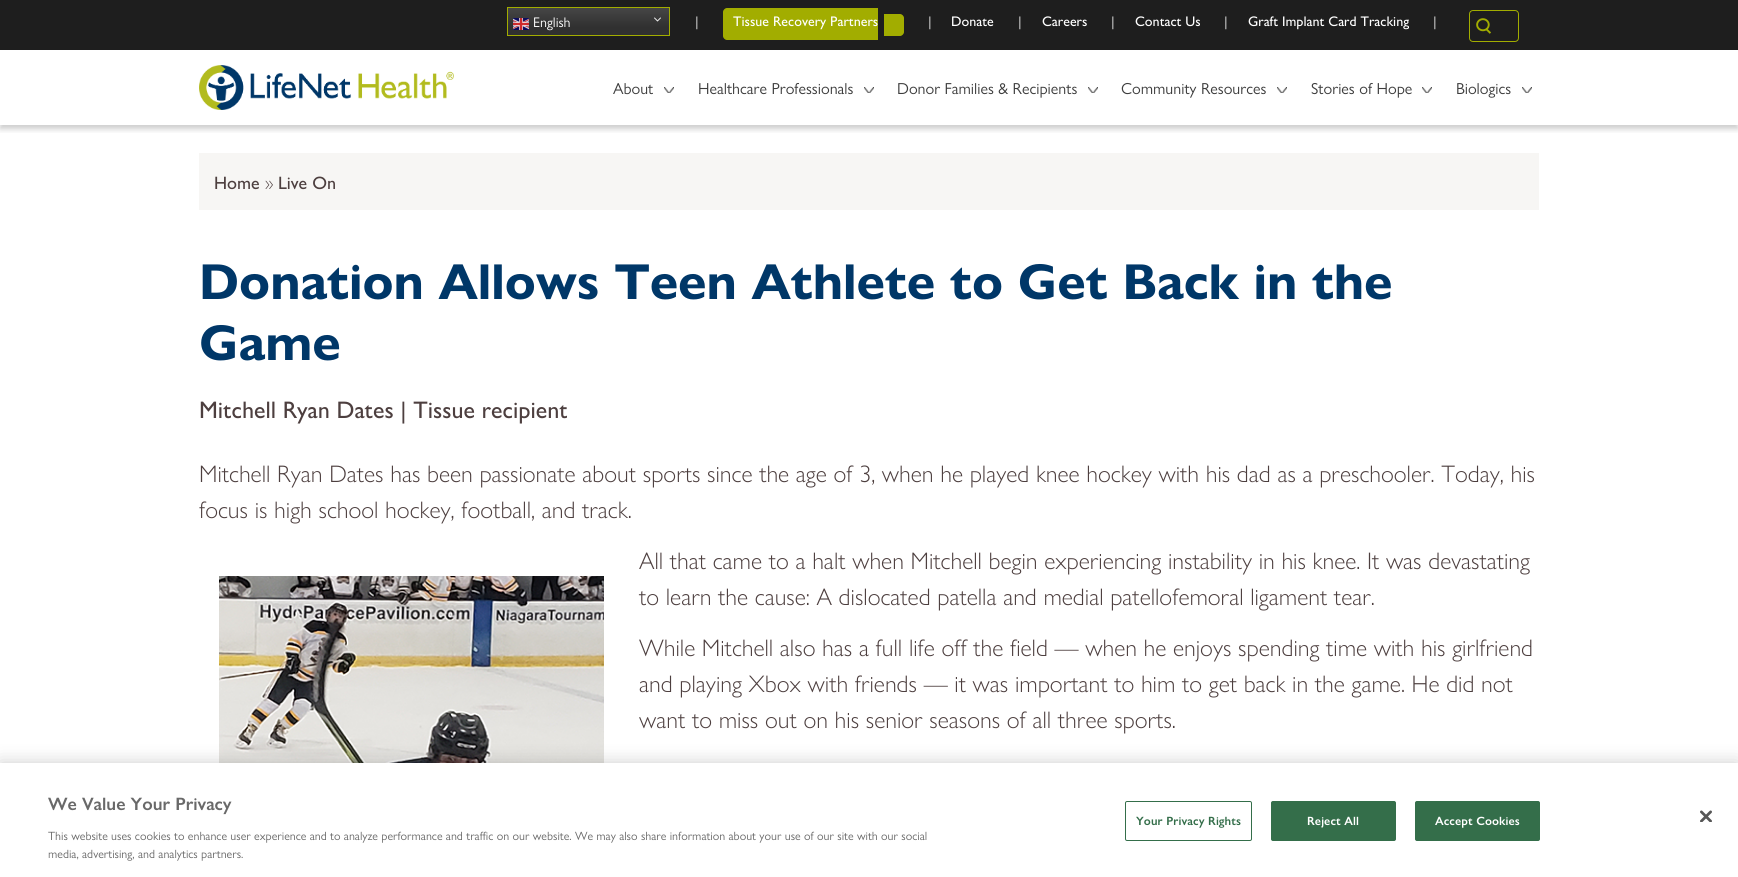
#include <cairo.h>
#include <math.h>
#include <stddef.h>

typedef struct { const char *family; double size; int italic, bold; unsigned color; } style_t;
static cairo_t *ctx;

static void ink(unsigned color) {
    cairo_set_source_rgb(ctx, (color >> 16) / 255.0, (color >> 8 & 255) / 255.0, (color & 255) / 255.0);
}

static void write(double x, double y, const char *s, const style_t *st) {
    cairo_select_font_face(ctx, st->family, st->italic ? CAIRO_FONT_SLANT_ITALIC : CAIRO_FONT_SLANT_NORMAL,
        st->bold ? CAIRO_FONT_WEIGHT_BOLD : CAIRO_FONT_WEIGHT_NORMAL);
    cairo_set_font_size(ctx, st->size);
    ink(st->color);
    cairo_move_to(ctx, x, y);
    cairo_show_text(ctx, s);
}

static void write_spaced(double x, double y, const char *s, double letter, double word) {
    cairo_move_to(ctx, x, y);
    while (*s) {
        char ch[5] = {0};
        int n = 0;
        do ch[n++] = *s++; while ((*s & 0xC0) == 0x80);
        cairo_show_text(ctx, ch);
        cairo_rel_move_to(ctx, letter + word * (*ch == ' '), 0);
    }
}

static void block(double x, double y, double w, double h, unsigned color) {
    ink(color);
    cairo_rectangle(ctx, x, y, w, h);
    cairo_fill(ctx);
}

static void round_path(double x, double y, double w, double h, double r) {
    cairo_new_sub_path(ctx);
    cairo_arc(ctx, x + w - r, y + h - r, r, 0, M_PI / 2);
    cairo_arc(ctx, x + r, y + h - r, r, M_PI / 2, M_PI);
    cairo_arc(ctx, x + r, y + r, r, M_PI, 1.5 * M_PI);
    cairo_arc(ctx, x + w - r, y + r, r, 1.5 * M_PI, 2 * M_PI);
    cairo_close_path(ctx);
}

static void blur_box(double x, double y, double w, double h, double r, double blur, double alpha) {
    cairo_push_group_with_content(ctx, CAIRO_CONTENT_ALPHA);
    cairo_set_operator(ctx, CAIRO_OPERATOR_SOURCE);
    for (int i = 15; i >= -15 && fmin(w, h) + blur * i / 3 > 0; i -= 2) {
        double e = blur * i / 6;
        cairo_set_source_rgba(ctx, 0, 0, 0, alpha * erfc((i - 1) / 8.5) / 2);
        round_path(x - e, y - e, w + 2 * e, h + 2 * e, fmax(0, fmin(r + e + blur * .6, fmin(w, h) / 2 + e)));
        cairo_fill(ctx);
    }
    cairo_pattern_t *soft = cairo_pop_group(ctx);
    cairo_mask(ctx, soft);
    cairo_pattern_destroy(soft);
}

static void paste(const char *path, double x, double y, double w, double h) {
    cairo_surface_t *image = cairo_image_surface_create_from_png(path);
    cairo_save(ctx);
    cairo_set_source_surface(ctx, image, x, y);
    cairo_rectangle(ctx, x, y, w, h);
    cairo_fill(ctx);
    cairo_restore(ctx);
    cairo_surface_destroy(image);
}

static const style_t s1 = {"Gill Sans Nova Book", 14, 0, 0, 0xffffff};
static const style_t s2 = {"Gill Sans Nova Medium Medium", 14, 0, 0, 0xcacaca};
static const style_t s3 = {"Gill Sans Nova Medium Medium", 14, 0, 0, 0xffffff};
static const style_t s4 = {"Gill Sans Nova Book", 16, 0, 0, 0x3d3d3d};
static const style_t s5 = {"Gill Sans Nova Medium Medium", 18, 0, 0, 0x4d3f3f};
static const style_t s6 = {"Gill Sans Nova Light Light", 18, 0, 0, 0x4d3f3f};
static const style_t s7 = {"Gill Sans Nova Book", 50.7, 0, 1, 0x003768};
static const style_t s8 = {"Gill Sans Nova Medium Medium", 24, 0, 0, 0x4d3f3f};
static const style_t s9 = {"Gill Sans Nova Light Light", 24, 0, 0, 0x4d3f3f};
static const style_t s10 = {"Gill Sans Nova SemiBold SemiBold", 18, 0, 0, 0x696969};
static const style_t s11 = {"Gill Sans Nova Book", 12, 0, 0, 0x696969};

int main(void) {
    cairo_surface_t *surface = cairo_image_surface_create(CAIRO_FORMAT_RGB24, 1738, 877);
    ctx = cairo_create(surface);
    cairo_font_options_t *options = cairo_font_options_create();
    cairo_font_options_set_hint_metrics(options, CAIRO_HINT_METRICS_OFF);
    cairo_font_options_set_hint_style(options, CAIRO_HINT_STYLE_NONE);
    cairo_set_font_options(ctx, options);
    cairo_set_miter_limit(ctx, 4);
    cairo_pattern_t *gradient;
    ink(0xffffff);
    cairo_paint(ctx);
    cairo_save(ctx);
    cairo_rectangle(ctx, 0, 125, 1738, 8);
    cairo_clip(ctx);
    ink(0x000000);
    blur_box(0, 54, 1738, 75, 0, 3, 0.2);
    cairo_restore(ctx);
    block(0, 0, 1738, 50, 0x1e1e1e);
    gradient = cairo_pattern_create_linear(589, 7, 589, 36);
    cairo_pattern_add_color_stop_rgba(gradient, 0, 0.278, 0.278, 0.278, 1);
    cairo_pattern_add_color_stop_rgba(gradient, 0.7, 0.188, 0.188, 0.188, 1);
    cairo_set_source(ctx, gradient);
    cairo_pattern_destroy(gradient);
    cairo_rectangle(ctx, 508, 8, 161, 27);
    cairo_fill(ctx);
    cairo_rectangle(ctx, 507.5, 7.5, 162, 28);
    ink(0xa2ad00);
    cairo_set_line_width(ctx, 1);
    cairo_stroke(ctx);
    paste("pic1.png", 513, 18, 16, 12);
    write(533, 27, "English", &s1);
    paste("pic2.png", 654, 17, 7, 5);
    write(695, 26, "|", &s2);
    ink(0xa2ad00);
    cairo_new_path(ctx);
    cairo_move_to(ctx, 727, 8);
    cairo_line_to(ctx, 878, 8);
    cairo_line_to(ctx, 878, 40);
    cairo_line_to(ctx, 727, 40);
    cairo_curve_to(ctx, 725, 40, 723, 38, 723, 36);
    cairo_line_to(ctx, 723, 12);
    cairo_curve_to(ctx, 723, 10, 725, 8, 727, 8);
    cairo_close_path(ctx);
    cairo_fill(ctx);
    write(733, 26, "Tissue Recovery Partners", &s3);
    ink(0xa2ad00);
    cairo_new_path(ctx);
    cairo_move_to(ctx, 884, 14);
    cairo_line_to(ctx, 900, 14);
    cairo_curve_to(ctx, 902, 14, 904, 16, 904, 18);
    cairo_line_to(ctx, 904, 32);
    cairo_curve_to(ctx, 904, 34, 902, 36, 900, 36);
    cairo_line_to(ctx, 884, 36);
    cairo_close_path(ctx);
    cairo_fill(ctx);
    write(928, 26, "|", &s2);
    write(951, 26, "Donate", &s3);
    write(1018, 26, "|", &s2);
    write(1042, 26, "Careers", &s3);
    write(1111, 26, "|", &s2);
    write(1135, 26, "Contact Us", &s3);
    write(1224, 26, "|", &s2);
    write(1248, 26, "Graft Implant Card Tracking", &s3);
    write(1433, 26, "|", &s2);
    round_path(1469.5, 10.5, 49, 31, 3.5);
    ink(0xa2ad00);
    cairo_stroke(ctx);
    ink(0x1e1e1e);
    round_path(1470, 11, 48, 30, 5);
    cairo_fill(ctx);
    paste("pic3.png", 1476, 18, 15, 16);
    paste("pic4.png", 199, 65, 255, 45);
    write(613, 94, "About", &s4);
    paste("pic5.png", 664, 87, 10, 6);
    write(698, 94, "Healthcare Professionals", &s4);
    paste("pic5.png", 864, 87, 10, 6);
    write(897, 94, "Donor Families & Recipients", &s4);
    paste("pic5.png", 1088, 87, 10, 6);
    write(1121, 94, "Community Resources", &s4);
    paste("pic5.png", 1277, 87, 10, 6);
    write(1311, 94, "Stories of Hope", &s4);
    paste("pic5.png", 1422, 87, 10, 6);
    write(1456, 94, "Biologics", &s4);
    paste("pic5.png", 1522, 87, 10, 6);
    block(199, 153, 1340, 57, 0xf7f6f4);
    write(214, 189, "Home", &s5);
    write(265, 189, "»", &s6);
    write(278, 189, "Live On", &s5);
    write(199, 299, "Donation Allows Teen Athlete to Get Back in the", &s7);
    write(199, 360, "Game", &s7);
    write(199, 418, "Mitchell Ryan Dates | Tissue recipient", &s8);
    write(199, 482, "Mitchell Ryan Dates has been passionate about sports since the age of 3, when he played knee hockey with his dad as a preschooler. Today, his", &s9);
    write(199, 518, "focus is high school hockey, football, and track.", &s9);
    write(639, 569, "All that came to a halt when Mitchell begin experiencing instability in his knee. It was devastating", &s9);
    paste("pic6.png", 219, 576, 385, 187);
    write(639, 605, "to learn the cause: A dislocated patella and medial patellofemoral ligament tear.", &s9);
    write(639, 656, "While Mitchell also has a full life off the field — when he enjoys spending time with his girlfriend", &s9);
    write(639, 692, "and playing Xbox with friends — it was important to him to get back in the game. He did not", &s9);
    write(639, 728, "want to miss out on his senior seasons of all three sports.", &s9);
    ink(0x000000);
    blur_box(0, 763, 1738, 114, 0, 9, 0.2);
    block(0, 763, 1738, 114, 0xffffff);
    write(48, 810, "We Value Your Privacy", &s10);
    write(48, 840, "This website uses cookies to enhance user experience and to analyze performance and traffic on our website. We may also share information about your use of our site with our social", &s11);
    write(48, 858, "media, advertising, and analytics partners.", &s11);
    round_path(1125.5, 801.5, 126, 39, 1.5);
    ink(0x346e4a);
    cairo_stroke(ctx);
    cairo_select_font_face(ctx, "Gill Sans Nova SemiBold SemiBold", CAIRO_FONT_SLANT_NORMAL, CAIRO_FONT_WEIGHT_NORMAL);
    write_spaced(1136, 825, "Your Privacy Rights", 0.1, 0);
    round_path(1271.5, 801.5, 124, 39, 1.5);
    cairo_fill_preserve(ctx);
    cairo_stroke(ctx);
    ink(0xffffff);
    write_spaced(1307, 825, "Reject All", 0.1, 0);
    ink(0x346e4a);
    round_path(1415.5, 801.5, 124, 39, 1.5);
    cairo_fill_preserve(ctx);
    cairo_stroke(ctx);
    ink(0xffffff);
    write_spaced(1435, 825, "Accept Cookies", 0.1, 0);
    paste("pic7.png", 1700, 810, 12, 12);
    cairo_surface_write_to_png(surface, "screenshot.png");
    cairo_font_options_destroy(options);
    cairo_destroy(ctx);
    cairo_surface_destroy(surface);
    return 0;
}
